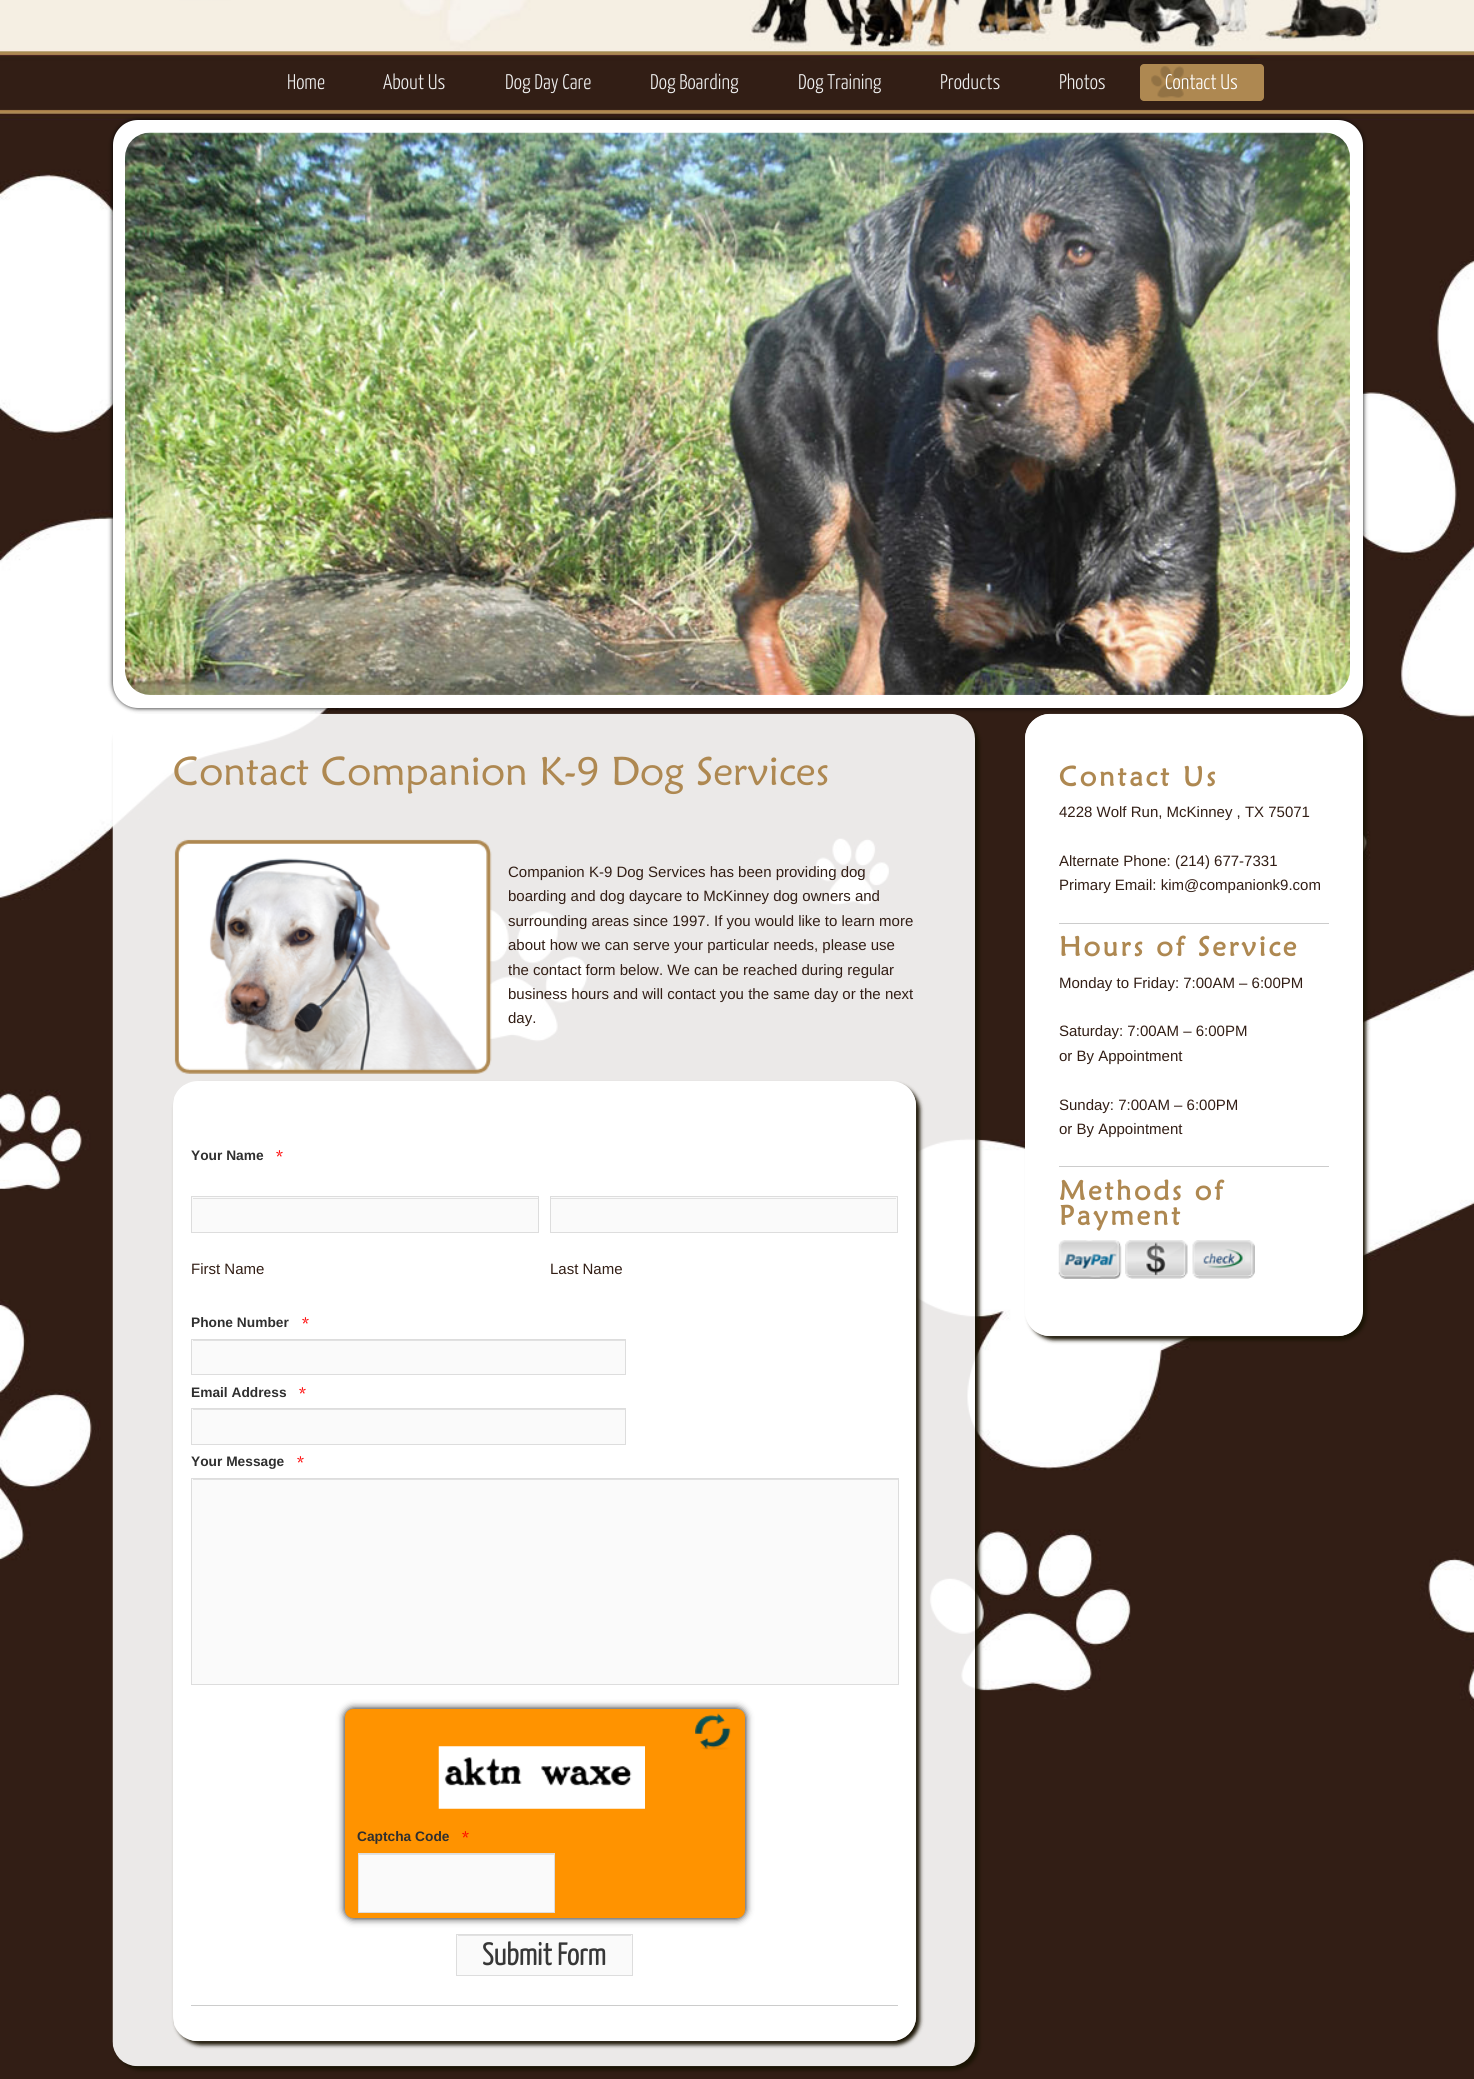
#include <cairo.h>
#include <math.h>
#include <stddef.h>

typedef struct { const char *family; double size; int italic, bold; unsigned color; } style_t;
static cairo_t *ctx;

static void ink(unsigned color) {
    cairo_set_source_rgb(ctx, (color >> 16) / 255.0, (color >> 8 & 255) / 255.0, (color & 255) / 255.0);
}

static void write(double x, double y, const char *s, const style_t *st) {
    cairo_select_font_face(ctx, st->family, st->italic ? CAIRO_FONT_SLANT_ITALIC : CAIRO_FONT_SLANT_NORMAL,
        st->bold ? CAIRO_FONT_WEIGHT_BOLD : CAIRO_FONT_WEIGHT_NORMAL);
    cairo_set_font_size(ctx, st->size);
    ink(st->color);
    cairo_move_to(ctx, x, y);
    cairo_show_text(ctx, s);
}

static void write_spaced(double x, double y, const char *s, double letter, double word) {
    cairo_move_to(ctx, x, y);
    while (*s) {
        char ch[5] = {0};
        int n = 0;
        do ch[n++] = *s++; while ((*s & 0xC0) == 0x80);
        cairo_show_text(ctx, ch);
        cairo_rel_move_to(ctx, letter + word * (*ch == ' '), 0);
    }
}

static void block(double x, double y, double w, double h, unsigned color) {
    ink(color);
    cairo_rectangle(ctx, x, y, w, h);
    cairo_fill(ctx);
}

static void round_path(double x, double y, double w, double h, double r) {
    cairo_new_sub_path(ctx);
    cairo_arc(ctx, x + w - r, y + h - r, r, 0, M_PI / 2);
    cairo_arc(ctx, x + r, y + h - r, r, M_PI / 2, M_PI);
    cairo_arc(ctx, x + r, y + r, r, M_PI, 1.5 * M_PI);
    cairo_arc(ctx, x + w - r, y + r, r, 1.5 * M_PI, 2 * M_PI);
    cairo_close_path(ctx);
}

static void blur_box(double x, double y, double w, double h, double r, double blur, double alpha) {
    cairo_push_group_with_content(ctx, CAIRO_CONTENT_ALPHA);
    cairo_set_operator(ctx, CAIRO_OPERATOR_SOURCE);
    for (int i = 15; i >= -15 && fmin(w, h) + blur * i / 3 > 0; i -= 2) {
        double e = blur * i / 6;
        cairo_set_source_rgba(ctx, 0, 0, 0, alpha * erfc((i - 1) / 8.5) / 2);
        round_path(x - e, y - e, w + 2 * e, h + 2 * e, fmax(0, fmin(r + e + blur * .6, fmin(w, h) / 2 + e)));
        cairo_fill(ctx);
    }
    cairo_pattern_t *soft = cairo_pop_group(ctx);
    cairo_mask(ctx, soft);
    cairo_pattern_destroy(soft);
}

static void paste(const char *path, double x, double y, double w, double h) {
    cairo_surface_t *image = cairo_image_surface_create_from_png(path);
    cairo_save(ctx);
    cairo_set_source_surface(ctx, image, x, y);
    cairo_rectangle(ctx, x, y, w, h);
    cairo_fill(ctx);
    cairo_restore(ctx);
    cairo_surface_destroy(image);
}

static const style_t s1 = {"Yanone Kaffeesatz Light", 21.25, 0, 0, 0xeeeeee};
static const style_t s2 = {"Yanone Kaffeesatz Light", 21.25, 0, 0, 0xffffff};
static const style_t s3 = {"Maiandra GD", 40, 0, 0, 0xae8851};
static const style_t s4 = {"Liberation Sans", 15, 0, 0, 0x321e15};
static const style_t s5 = {"Liberation Sans", 13.75, 0, 1, 0x2f2f2f};
static const style_t s6 = {"Yanone Kaffeesatz", 13.75, 0, 1, 0xff0000};
static const style_t s7 = {"Yanone Kaffeesatz", 31, 0, 1, 0x373737};

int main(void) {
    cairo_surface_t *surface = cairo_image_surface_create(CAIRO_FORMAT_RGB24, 1474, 2079);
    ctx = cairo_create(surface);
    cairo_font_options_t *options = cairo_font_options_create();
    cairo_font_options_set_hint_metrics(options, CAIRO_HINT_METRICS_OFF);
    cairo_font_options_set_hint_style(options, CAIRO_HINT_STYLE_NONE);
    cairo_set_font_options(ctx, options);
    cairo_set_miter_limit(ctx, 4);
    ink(0x321e15);
    cairo_paint(ctx);
    paste("pic1.png", 0, 0, 1474, 1750);
    write(287, 89, "Home", &s1);
    write(383, 89, "About Us", &s1);
    write(505, 89, "Dog Day Care", &s1);
    write(650, 89, "Dog Boarding", &s1);
    write(798, 89, "Dog Training", &s1);
    write(940, 89, "Products", &s1);
    write(1059, 89, "Photos", &s1);
    ink(0xae8851);
    round_path(1140, 64, 124, 37, 4);
    cairo_fill(ctx);
    paste("pic2.png", 1151, 66, 41, 32);
    write(1165, 89, "Contact Us", &s2);
    ink(0x000000);
    blur_box(113, 120, 1250, 588, 25, 2.5, 1);
    ink(0xffffff);
    round_path(113, 120, 1250, 588, 25);
    cairo_fill(ctx);
    paste("pic3.png", 125, 132, 1225, 563);
    cairo_save(ctx);
    cairo_set_fill_rule(ctx, CAIRO_FILL_RULE_EVEN_ODD);
    cairo_new_path(ctx);
    cairo_move_to(ctx, 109, 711);
    cairo_line_to(ctx, 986, 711);
    cairo_line_to(ctx, 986, 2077);
    cairo_line_to(ctx, 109, 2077);
    cairo_close_path(ctx);
    cairo_move_to(ctx, 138, 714);
    cairo_line_to(ctx, 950, 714);
    cairo_curve_to(ctx, 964, 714, 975, 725, 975, 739);
    cairo_line_to(ctx, 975, 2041);
    cairo_curve_to(ctx, 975, 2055, 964, 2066, 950, 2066);
    cairo_line_to(ctx, 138, 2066);
    cairo_curve_to(ctx, 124, 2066, 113, 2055, 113, 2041);
    cairo_line_to(ctx, 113, 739);
    cairo_curve_to(ctx, 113, 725, 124, 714, 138, 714);
    cairo_close_path(ctx);
    cairo_clip(ctx);
    ink(0x191303);
    blur_box(116, 718, 863, 1352, 25, 2, 1);
    cairo_restore(ctx);
    paste("pic4.png", 112, 713, 863, 1354);
    write(173, 785, "Contact Companion K-9 Dog Services", &s3);
    paste("pic5.png", 174, 839, 318, 235);
    write(508, 877, "Companion K-9 Dog Services has been providing dog", &s4);
    write(508, 901, "boarding and dog daycare to McKinney dog owners and", &s4);
    write(508, 926, "surrounding areas since 1997. If you would like to learn more", &s4);
    write(508, 950, "about how we can serve your particular needs, please use", &s4);
    write(508, 975, "the contact form below. We can be reached during regular", &s4);
    write(508, 999, "business hours and will contact you the same day or the next", &s4);
    write(508, 1023, "day.", &s4);
    ink(0x191303);
    blur_box(176, 1085, 744, 960, 25, 2, 1);
    ink(0xffffff);
    round_path(173, 1081, 743, 960, 25);
    cairo_fill(ctx);
    paste("pic6.png", 174, 1085, 743, 957);
    write(191, 1160, "Your Name", &s5);
    write(276, 1160, "*", &s6);
    block(192, 1197, 346, 35, 0xfafafa);
    block(193, 1198, 345, 1, 0xe1e1e1);
    cairo_rectangle(ctx, 191.5, 1196.5, 347, 36);
    ink(0xdddddd);
    cairo_set_line_width(ctx, 1);
    cairo_stroke(ctx);
    write(191, 1274, "First Name", &s4);
    block(551, 1197, 346, 35, 0xfafafa);
    block(551, 1198, 345, 1, 0xe1e1e1);
    cairo_rectangle(ctx, 550.5, 1196.5, 347, 36);
    ink(0xdddddd);
    cairo_stroke(ctx);
    write(550, 1274, "Last Name", &s4);
    write(191, 1327, "Phone Number", &s5);
    write(302, 1327, "*", &s6);
    block(192, 1340, 433, 34, 0xfafafa);
    block(193, 1340, 432, 1, 0xe1e1e1);
    cairo_rectangle(ctx, 191.5, 1339.5, 434, 35);
    ink(0xdddddd);
    cairo_stroke(ctx);
    write(191, 1397, "Email Address", &s5);
    write(299, 1397, "*", &s6);
    block(192, 1409, 433, 35, 0xfafafa);
    block(193, 1409, 432, 1, 0xe1e1e1);
    cairo_rectangle(ctx, 191.5, 1408.5, 434, 36);
    ink(0xdddddd);
    cairo_stroke(ctx);
    write(191, 1466, "Your Message", &s5);
    write(297, 1466, "*", &s6);
    block(192, 1479, 706, 205, 0xfafafa);
    block(193, 1479, 705, 1, 0xe1e1e1);
    cairo_rectangle(ctx, 191.5, 1478.5, 707, 206);
    ink(0xdddddd);
    cairo_stroke(ctx);
    ink(0x000000);
    blur_box(345, 1709, 400, 209, 8, 4, 1);
    ink(0xff9300);
    round_path(345, 1709, 400, 209, 8);
    cairo_fill(ctx);
    paste("pic7.png", 695, 1713, 36, 37);
    paste("pic8.png", 438, 1746, 207, 63);
    write(357, 1841, "Captcha Code", &s5);
    write(462, 1841, "*", &s6);
    block(359, 1855, 195, 57, 0xfafafa);
    block(359, 1854, 195, 1, 0xe1e1e1);
    cairo_rectangle(ctx, 358.5, 1853.5, 196, 59);
    ink(0xdddddd);
    cairo_stroke(ctx);
    block(457, 1935, 175, 40, 0xfafafa);
    block(458, 1935, 173, 1, 0xe1e1e1);
    cairo_rectangle(ctx, 456.5, 1934.5, 176, 41);
    ink(0xdddddd);
    cairo_stroke(ctx);
    write(482, 1965, "Submit Form", &s7);
    block(191, 2005, 707, 1, 0xcccccc);
    ink(0x191303);
    blur_box(1029, 718, 337, 622, 25, 2, 1);
    ink(0xffffff);
    round_path(1025, 714, 338, 622, 25);
    cairo_fill(ctx);
    paste("pic9.png", 1025, 713, 338, 624);
    cairo_select_font_face(ctx, "Maiandra GD", CAIRO_FONT_SLANT_NORMAL, CAIRO_FONT_WEIGHT_BOLD);
    cairo_set_font_size(ctx, 27.5);
    ink(0xae8851);
    write_spaced(1059, 786, "Contact Us", 2.75, 0);
    write(1059, 817, "4228 Wolf Run, McKinney , TX 75071", &s4);
    write(1059, 866, "Alternate Phone: (214) 677-7331", &s4);
    write(1059, 890, "Primary Email: kim@companionk9.com", &s4);
    block(1059, 923, 270, 1, 0xcccccc);
    cairo_select_font_face(ctx, "Maiandra GD", CAIRO_FONT_SLANT_NORMAL, CAIRO_FONT_WEIGHT_BOLD);
    cairo_set_font_size(ctx, 27.5);
    ink(0xae8851);
    write_spaced(1059, 956, "Hours of Service", 2.75, 0);
    write(1059, 988, "Monday to Friday: 7:00AM – 6:00PM", &s4);
    write(1059, 1036, "Saturday: 7:00AM – 6:00PM", &s4);
    write(1059, 1061, "or By Appointment", &s4);
    write(1059, 1110, "Sunday: 7:00AM – 6:00PM", &s4);
    write(1059, 1134, "or By Appointment", &s4);
    block(1059, 1166, 270, 1, 0xcccccc);
    cairo_select_font_face(ctx, "Maiandra GD", CAIRO_FONT_SLANT_NORMAL, CAIRO_FONT_WEIGHT_BOLD);
    cairo_set_font_size(ctx, 27.5);
    ink(0xae8851);
    write_spaced(1059, 1200, "Methods of", 2.75, 0);
    write_spaced(1059, 1225, "Payment", 2.75, 0);
    paste("pic10.png", 1058, 1240, 64, 39);
    paste("pic11.png", 1125, 1240, 63, 39);
    paste("pic12.png", 1192, 1240, 63, 39);
    cairo_surface_write_to_png(surface, "screenshot.png");
    cairo_font_options_destroy(options);
    cairo_destroy(ctx);
    cairo_surface_destroy(surface);
    return 0;
}
